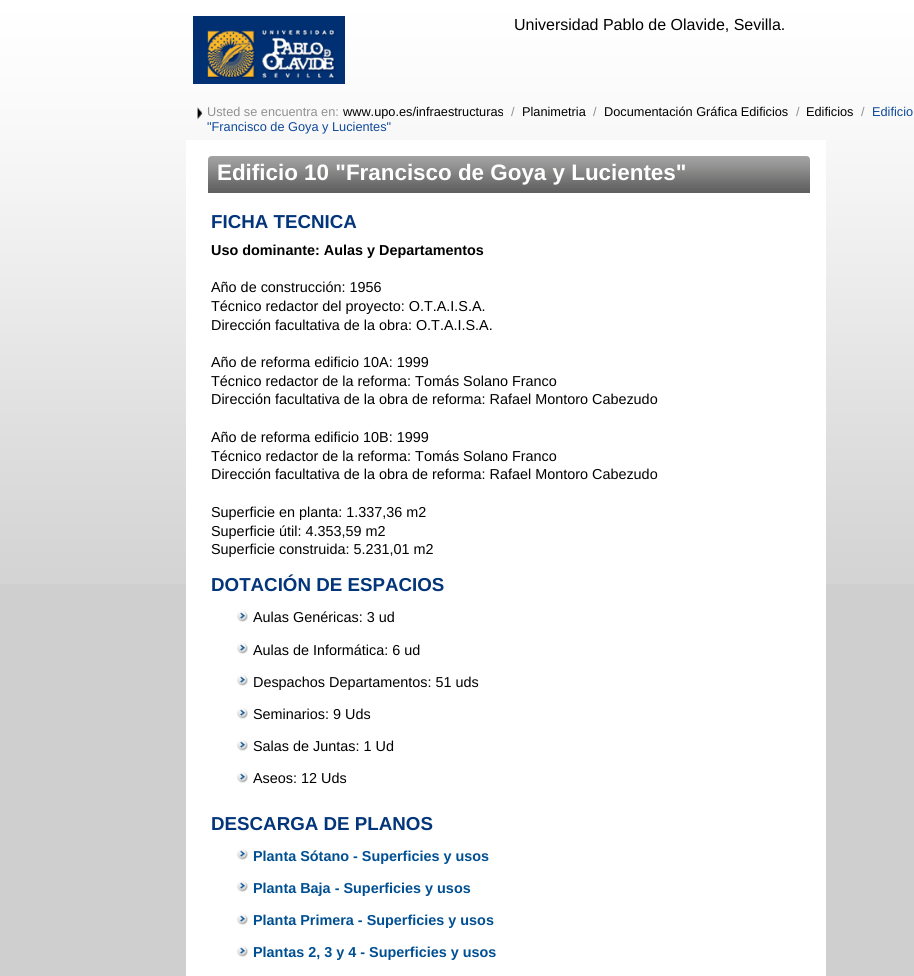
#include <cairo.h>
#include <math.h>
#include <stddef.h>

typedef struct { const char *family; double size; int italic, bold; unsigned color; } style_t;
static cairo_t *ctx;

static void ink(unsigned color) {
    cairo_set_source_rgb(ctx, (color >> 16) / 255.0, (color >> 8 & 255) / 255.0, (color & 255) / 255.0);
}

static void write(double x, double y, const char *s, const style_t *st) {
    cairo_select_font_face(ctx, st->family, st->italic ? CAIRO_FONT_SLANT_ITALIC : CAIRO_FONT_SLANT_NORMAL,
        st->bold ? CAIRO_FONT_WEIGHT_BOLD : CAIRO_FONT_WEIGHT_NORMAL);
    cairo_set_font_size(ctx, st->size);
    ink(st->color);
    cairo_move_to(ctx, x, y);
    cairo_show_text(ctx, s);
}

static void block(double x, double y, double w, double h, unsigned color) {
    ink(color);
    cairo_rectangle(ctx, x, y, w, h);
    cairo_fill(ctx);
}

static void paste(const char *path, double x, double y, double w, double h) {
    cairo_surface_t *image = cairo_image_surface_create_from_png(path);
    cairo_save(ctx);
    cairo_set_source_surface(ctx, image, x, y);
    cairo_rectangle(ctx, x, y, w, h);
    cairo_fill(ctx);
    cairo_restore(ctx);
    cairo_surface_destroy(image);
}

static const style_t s1 = {"Liberation Sans", 16, 0, 0, 0x000000};
static const style_t s2 = {"Liberation Sans", 12.75, 0, 0, 0x919191};
static const style_t s3 = {"Liberation Sans", 12.75, 0, 0, 0x000000};
static const style_t s4 = {"Liberation Sans", 12.75, 0, 0, 0x0f499a};
static const style_t s5 = {"Liberation Sans", 22.4, 0, 1, 0xffffff};
static const style_t s6 = {"Liberation Sans", 18.75, 0, 1, 0x03357a};
static const style_t s7 = {"Liberation Sans", 14.4, 0, 1, 0x000000};
static const style_t s8 = {"Liberation Sans", 14.4, 0, 0, 0x000000};
static const style_t s9 = {"Liberation Sans", 14.4, 0, 1, 0x004f92};

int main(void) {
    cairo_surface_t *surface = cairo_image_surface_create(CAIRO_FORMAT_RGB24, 914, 976);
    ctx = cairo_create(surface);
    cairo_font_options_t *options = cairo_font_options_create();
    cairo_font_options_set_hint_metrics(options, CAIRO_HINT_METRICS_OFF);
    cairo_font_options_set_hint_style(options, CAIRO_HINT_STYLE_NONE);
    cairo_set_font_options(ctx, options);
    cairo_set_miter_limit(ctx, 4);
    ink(0xcfcfcf);
    cairo_paint(ctx);
    paste("pic1.png", 0, 0, 914, 584);
    paste("pic2.png", 193, 16, 152, 68);
    write(514, 30, "Universidad Pablo de Olavide, Sevilla.", &s1);
    paste("pic3.png", 197, 107, 6, 12);
    write(207, 116, "Usted se encuentra en:", &s2);
    write(343, 116, "www.upo.es/infraestructuras", &s3);
    write(511, 116, "/", &s2);
    write(522, 116, "Planimetria", &s3);
    write(593, 116, "/", &s2);
    write(604, 116, "Documentación Gráfica Edificios", &s3);
    write(796, 116, "/", &s2);
    write(806, 116, "Edificios", &s3);
    write(861, 116, "/", &s2);
    write(872, 116, "Edificio", &s4);
    write(207, 131, "\"Francisco de Goya y Lucientes\"", &s4);
    block(186, 140, 640, 836, 0xffffff);
    paste("pic4.png", 208, 156, 602, 37);
    write(217, 180, "Edificio 10 \"Francisco de Goya y Lucientes\"", &s5);
    write(211, 228, "FICHA TECNICA", &s6);
    write(211, 255, "Uso dominante: Aulas y Departamentos", &s7);
    write(211, 292, "Año de construcción: 1956", &s8);
    write(211, 311, "Técnico redactor del proyecto: O.T.A.I.S.A.", &s8);
    write(211, 330, "Dirección facultativa de la obra: O.T.A.I.S.A.", &s8);
    write(211, 367, "Año de reforma edificio 10A: 1999", &s8);
    write(211, 386, "Técnico redactor de la reforma: Tomás Solano Franco", &s8);
    write(211, 404, "Dirección facultativa de la obra de reforma: Rafael Montoro Cabezudo", &s8);
    write(211, 442, "Año de reforma edificio 10B: 1999", &s8);
    write(211, 461, "Técnico redactor de la reforma: Tomás Solano Franco", &s8);
    write(211, 479, "Dirección facultativa de la obra de reforma: Rafael Montoro Cabezudo", &s8);
    write(211, 517, "Superficie en planta: 1.337,36 m2", &s8);
    write(211, 536, "Superficie útil: 4.353,59 m2", &s8);
    write(211, 554, "Superficie construida: 5.231,01 m2", &s8);
    write(211, 591, "DOTACIÓN DE ESPACIOS", &s6);
    paste("pic5.png", 237, 611, 11, 11);
    write(253, 622, "Aulas Genéricas: 3 ud", &s8);
    paste("pic5.png", 237, 643, 11, 11);
    write(253, 655, "Aulas de Informática: 6 ud", &s8);
    paste("pic5.png", 237, 675, 11, 11);
    write(253, 687, "Despachos Departamentos: 51 uds", &s8);
    paste("pic6.png", 237, 708, 11, 11);
    write(253, 719, "Seminarios: 9 Uds", &s8);
    paste("pic5.png", 237, 740, 11, 11);
    write(253, 751, "Salas de Juntas: 1 Ud", &s8);
    paste("pic5.png", 237, 772, 11, 11);
    write(253, 783, "Aseos: 12 Uds", &s8);
    write(211, 830, "DESCARGA DE PLANOS", &s6);
    paste("pic5.png", 237, 849, 11, 11);
    write(253, 861, "Planta Sótano - Superficies y usos", &s9);
    paste("pic5.png", 237, 881, 11, 11);
    write(253, 893, "Planta Baja - Superficies y usos", &s9);
    paste("pic5.png", 237, 914, 11, 11);
    write(253, 925, "Planta Primera - Superficies y usos", &s9);
    paste("pic5.png", 237, 946, 11, 11);
    write(253, 957, "Plantas 2, 3 y 4 - Superficies y usos", &s9);
    cairo_surface_write_to_png(surface, "screenshot.png");
    cairo_font_options_destroy(options);
    cairo_destroy(ctx);
    cairo_surface_destroy(surface);
    return 0;
}
